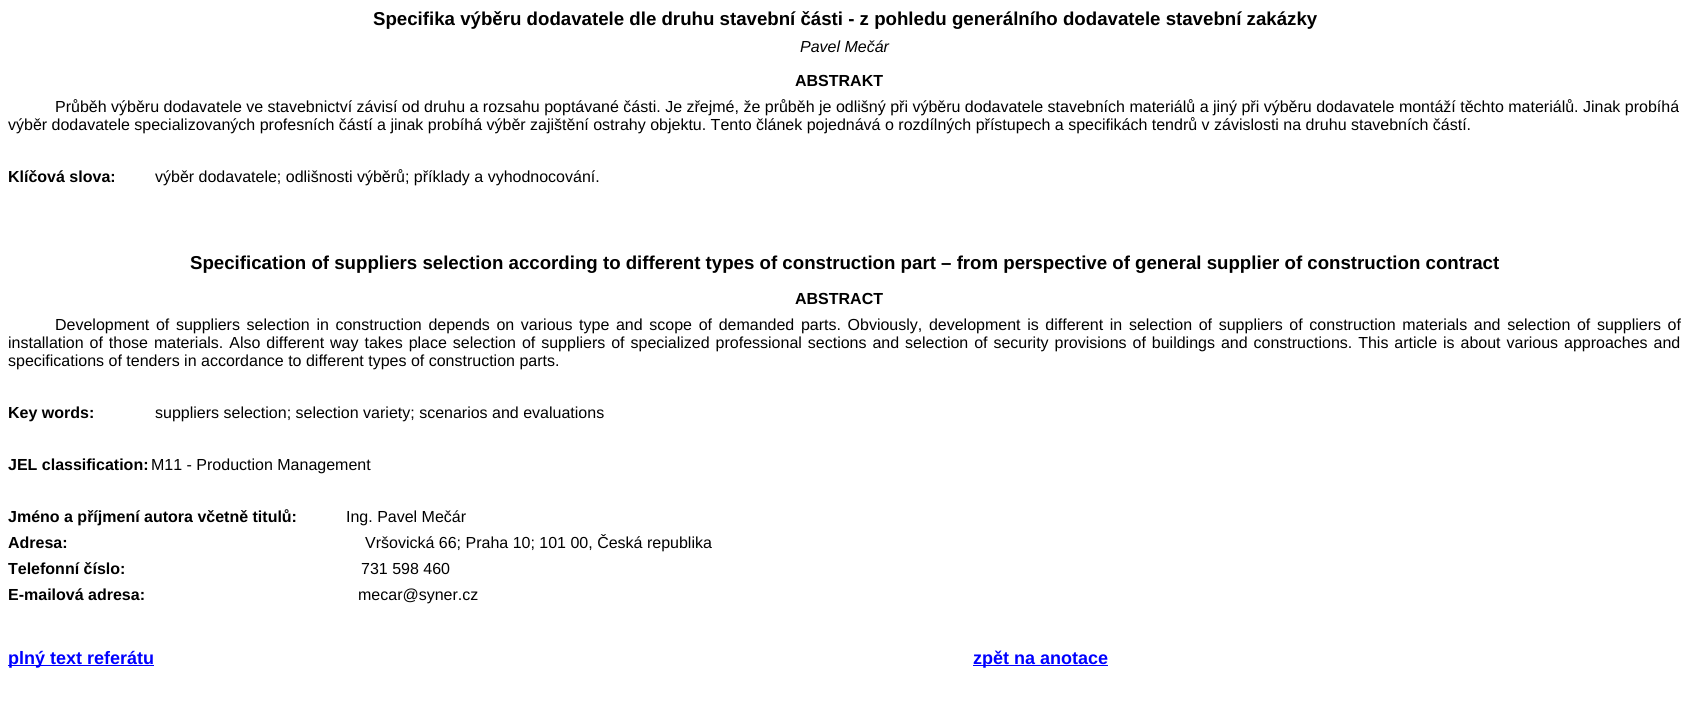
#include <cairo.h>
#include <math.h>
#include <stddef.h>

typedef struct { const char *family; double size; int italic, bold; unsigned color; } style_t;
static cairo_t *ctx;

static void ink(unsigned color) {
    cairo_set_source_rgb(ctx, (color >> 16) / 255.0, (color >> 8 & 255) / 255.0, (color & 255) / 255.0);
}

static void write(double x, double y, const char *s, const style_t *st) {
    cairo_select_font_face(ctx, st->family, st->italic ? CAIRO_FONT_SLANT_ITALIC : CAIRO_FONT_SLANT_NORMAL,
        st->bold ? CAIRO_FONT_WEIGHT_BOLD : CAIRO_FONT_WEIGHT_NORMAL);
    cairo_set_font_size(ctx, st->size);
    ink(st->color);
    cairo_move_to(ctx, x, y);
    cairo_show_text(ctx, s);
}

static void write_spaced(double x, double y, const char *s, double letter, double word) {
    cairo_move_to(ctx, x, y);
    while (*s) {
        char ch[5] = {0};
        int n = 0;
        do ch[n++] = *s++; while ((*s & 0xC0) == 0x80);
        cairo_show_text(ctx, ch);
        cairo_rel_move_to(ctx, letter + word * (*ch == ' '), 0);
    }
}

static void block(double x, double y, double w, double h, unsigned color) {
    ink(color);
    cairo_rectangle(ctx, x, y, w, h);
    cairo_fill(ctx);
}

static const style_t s1 = {"Liberation Sans", 18.67, 0, 1, 0x000000};
static const style_t s2 = {"Liberation Sans", 16, 1, 0, 0x000000};
static const style_t s3 = {"Liberation Sans", 16, 0, 1, 0x000000};
static const style_t s4 = {"Liberation Sans", 16, 0, 0, 0x000000};
static const style_t s5 = {"Liberation Sans", 18, 0, 1, 0x0000ff};

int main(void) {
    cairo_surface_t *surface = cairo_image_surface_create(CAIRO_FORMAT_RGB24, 1689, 717);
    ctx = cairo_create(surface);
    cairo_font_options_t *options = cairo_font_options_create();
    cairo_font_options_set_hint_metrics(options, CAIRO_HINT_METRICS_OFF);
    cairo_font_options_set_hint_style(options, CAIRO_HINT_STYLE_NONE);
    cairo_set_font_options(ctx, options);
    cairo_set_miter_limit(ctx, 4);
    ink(0xffffff);
    cairo_paint(ctx);
    write(373, 25, "Specifika výběru dodavatele dle druhu stavební části - z pohledu generálního dodavatele stavební zakázky", &s1);
    write(800, 52, "Pavel Mečár", &s2);
    write(795, 86, "ABSTRAKT", &s3);
    write(55, 112, "Průběh výběru dodavatele ve stavebnictví závisí od druhu a rozsahu poptávané části. Je zřejmé, že průběh je odlišný při výběru dodavatele stavebních materiálů a jiný při výběru dodavatele montáží těchto materiálů. Jinak probíhá", &s4);
    write(8, 130, "výběr dodavatele specializovaných profesních částí a jinak probíhá výběr zajištění ostrahy objektu. Tento článek pojednává o rozdílných přístupech a specifikách tendrů v závislosti na druhu stavebních částí.", &s4);
    write(8, 182, "Klíčová slova:", &s3);
    write(155, 182, "výběr dodavatele; odlišnosti výběrů; příklady a vyhodnocování.", &s4);
    write(190, 269, "Specification of suppliers selection according to different types of construction part – from perspective of general supplier of construction contract", &s1);
    write(795, 304, "ABSTRACT", &s3);
    cairo_select_font_face(ctx, "Liberation Sans", CAIRO_FONT_SLANT_NORMAL, CAIRO_FONT_WEIGHT_NORMAL);
    write_spaced(55, 330, "Development of suppliers selection in construction depends on various type and scope of demanded parts. Obviously, development is different in selection of suppliers of construction materials and selection of suppliers of", 0, 2.2);
    write_spaced(8, 348, "installation of those materials. Also different way takes place selection of suppliers of specialized professional sections and selection of security provisions of buildings and constructions. This article is about various approaches and", 0, 1.5);
    write(8, 366, "specifications of tenders in accordance to different types of construction parts.", &s4);
    write(8, 418, "Key words:", &s3);
    write(155, 418, "suppliers selection; selection variety; scenarios and evaluations", &s4);
    write(8, 470, "JEL classification:", &s3);
    write(151, 470, "M11 - Production Management", &s4);
    write(8, 522, "Jméno a příjmení autora včetně titulů:", &s3);
    write(346, 522, "Ing. Pavel Mečár", &s4);
    write(8, 548, "Adresa:", &s3);
    write(365, 548, "Vršovická 66; Praha 10; 101 00, Česká republika", &s4);
    write(8, 574, "Telefonní číslo:", &s3);
    write(361, 574, "731 598 460", &s4);
    write(8, 600, "E-mailová adresa:", &s3);
    write(358, 600, "mecar@syner.cz", &s4);
    block(8, 665, 146, 1, 0x0000ff);
    write(8, 664, "plný text referátu", &s5);
    block(973, 665, 135, 1, 0x0000ff);
    write(973, 664, "zpět na anotace", &s5);
    cairo_surface_write_to_png(surface, "screenshot.png");
    cairo_font_options_destroy(options);
    cairo_destroy(ctx);
    cairo_surface_destroy(surface);
    return 0;
}
